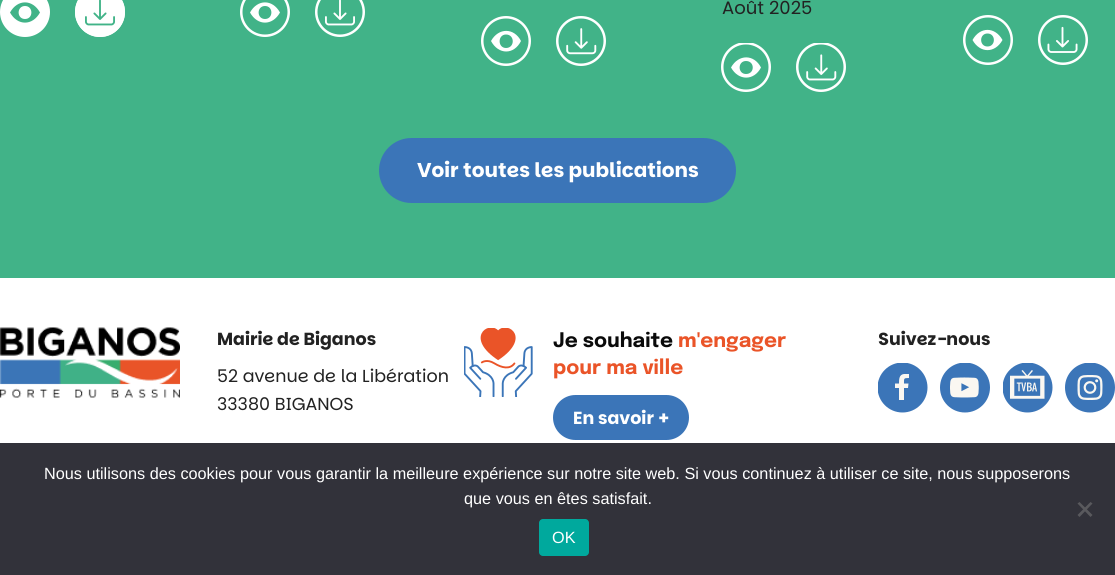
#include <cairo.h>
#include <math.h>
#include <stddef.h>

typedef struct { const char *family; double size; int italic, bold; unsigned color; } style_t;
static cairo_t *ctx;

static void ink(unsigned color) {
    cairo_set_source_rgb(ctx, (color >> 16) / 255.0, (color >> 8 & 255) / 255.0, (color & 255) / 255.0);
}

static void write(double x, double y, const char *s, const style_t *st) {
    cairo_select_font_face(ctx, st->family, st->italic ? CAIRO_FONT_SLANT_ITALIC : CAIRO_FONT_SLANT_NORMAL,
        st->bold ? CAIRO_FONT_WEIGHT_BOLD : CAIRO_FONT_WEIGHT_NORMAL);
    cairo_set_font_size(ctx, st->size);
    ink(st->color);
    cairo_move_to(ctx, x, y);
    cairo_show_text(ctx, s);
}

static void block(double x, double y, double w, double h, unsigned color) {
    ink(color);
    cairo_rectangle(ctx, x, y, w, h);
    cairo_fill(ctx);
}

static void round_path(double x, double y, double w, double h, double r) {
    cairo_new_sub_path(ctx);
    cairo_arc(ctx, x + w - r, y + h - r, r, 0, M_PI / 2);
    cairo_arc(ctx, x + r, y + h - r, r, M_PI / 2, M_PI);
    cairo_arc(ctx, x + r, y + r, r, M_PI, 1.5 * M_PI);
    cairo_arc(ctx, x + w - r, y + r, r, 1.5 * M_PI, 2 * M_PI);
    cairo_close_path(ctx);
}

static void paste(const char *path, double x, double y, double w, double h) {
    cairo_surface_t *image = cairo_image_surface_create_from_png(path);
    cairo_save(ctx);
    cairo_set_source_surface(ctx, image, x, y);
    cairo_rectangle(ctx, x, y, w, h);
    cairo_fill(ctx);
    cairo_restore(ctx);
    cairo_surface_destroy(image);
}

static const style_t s1 = {"Parkinsans", 18, 0, 0, 0x222222};
static const style_t s2 = {"Parkinsans", 20, 0, 1, 0xffffff};
static const style_t s3 = {"Parkinsans", 17.5, 0, 1, 0x222222};
static const style_t s4 = {"Parkinsans", 17.5, 0, 0, 0x222222};
static const style_t s5 = {"Epilogue", 20, 0, 1, 0x0a0a0a};
static const style_t s6 = {"Epilogue", 20, 0, 1, 0xea5428};
static const style_t s7 = {"Parkinsans", 17.5, 0, 1, 0xffffff};
static const style_t s8 = {"Liberation Sans", 16.25, 0, 0, 0xffffff};

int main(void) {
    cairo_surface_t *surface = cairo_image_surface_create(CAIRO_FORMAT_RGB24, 1115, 575);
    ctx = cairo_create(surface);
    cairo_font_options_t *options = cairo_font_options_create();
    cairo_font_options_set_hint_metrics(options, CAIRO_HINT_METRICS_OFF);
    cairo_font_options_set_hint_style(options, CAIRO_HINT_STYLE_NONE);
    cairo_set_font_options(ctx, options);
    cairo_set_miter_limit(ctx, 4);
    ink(0xffffff);
    cairo_paint(ctx);
    block(0, 0, 1115, 278, 0x41b388);
    ink(0xffffff);
    cairo_arc(ctx, 25, 12, 23.75, 0, 2 * M_PI);
    cairo_fill_preserve(ctx);
    cairo_set_line_width(ctx, 2.5);
    cairo_stroke(ctx);
    ink(0x41b388);
    cairo_new_path(ctx);
    cairo_move_to(ctx, 10, 12.5);
    cairo_curve_to(ctx, 17.5, -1, 32.5, -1, 40, 12.5);
    cairo_curve_to(ctx, 32.5, 26, 17.5, 26, 10, 12.5);
    cairo_close_path(ctx);
    cairo_move_to(ctx, 25, 19);
    cairo_curve_to(ctx, 33.5, 19, 33.5, 6, 25, 6);
    cairo_curve_to(ctx, 16.5, 6, 16.5, 19, 25, 19);
    cairo_close_path(ctx);
    cairo_fill(ctx);
    paste("pic1.png", 75, 0, 50, 37);
    cairo_arc(ctx, 265, 12, 23.75, 0, 2 * M_PI);
    ink(0xffffff);
    cairo_stroke(ctx);
    cairo_new_path(ctx);
    cairo_move_to(ctx, 250, 12.5);
    cairo_curve_to(ctx, 257.5, -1, 272.5, -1, 280, 12.5);
    cairo_curve_to(ctx, 272.5, 26, 257.5, 26, 250, 12.5);
    cairo_close_path(ctx);
    cairo_move_to(ctx, 265, 19);
    cairo_curve_to(ctx, 273.5, 19, 273.5, 6, 265, 6);
    cairo_curve_to(ctx, 256.5, 6, 256.5, 19, 265, 19);
    cairo_close_path(ctx);
    cairo_fill(ctx);
    paste("pic2.png", 315, 0, 50, 37);
    write(722, 14, "Août 2025", &s1);
    cairo_save(ctx);
    cairo_rectangle(ctx, 721, 43, 50, 50);
    cairo_clip(ctx);
    cairo_arc(ctx, 746, 67, 23.75, 0, 2 * M_PI);
    ink(0xffffff);
    cairo_stroke(ctx);
    cairo_restore(ctx);
    ink(0xffffff);
    cairo_new_path(ctx);
    cairo_move_to(ctx, 731, 67.5);
    cairo_curve_to(ctx, 738.5, 54, 754, 54, 761, 67.5);
    cairo_curve_to(ctx, 754, 81, 738.5, 81, 731, 67.5);
    cairo_close_path(ctx);
    cairo_move_to(ctx, 746, 74);
    cairo_curve_to(ctx, 755, 74, 755, 61, 746, 61);
    cairo_curve_to(ctx, 737.5, 61, 737.5, 74, 746, 74);
    cairo_close_path(ctx);
    cairo_fill(ctx);
    paste("pic3.png", 796, 43, 50, 49);
    cairo_arc(ctx, 506, 41, 23.75, 0, 2 * M_PI);
    cairo_stroke(ctx);
    cairo_new_path(ctx);
    cairo_move_to(ctx, 491, 41);
    cairo_curve_to(ctx, 498.5, 27.5, 514, 27.5, 521, 41);
    cairo_curve_to(ctx, 514, 55, 498.5, 55, 491, 41);
    cairo_close_path(ctx);
    cairo_move_to(ctx, 506, 48);
    cairo_curve_to(ctx, 515, 48, 515, 34.5, 506, 34.5);
    cairo_curve_to(ctx, 497.5, 34.5, 497.5, 48, 506, 48);
    cairo_close_path(ctx);
    cairo_fill(ctx);
    paste("pic4.png", 556, 16, 50, 50);
    cairo_arc(ctx, 988, 40, 23.75, 0, 2 * M_PI);
    cairo_stroke(ctx);
    cairo_new_path(ctx);
    cairo_move_to(ctx, 972.5, 40);
    cairo_curve_to(ctx, 980, 26.5, 995, 26.5, 1002.5, 40);
    cairo_curve_to(ctx, 995, 53.5, 980, 53.5, 972.5, 40);
    cairo_close_path(ctx);
    cairo_move_to(ctx, 987.5, 46.5);
    cairo_curve_to(ctx, 996, 46.5, 996, 33.5, 987.5, 33.5);
    cairo_curve_to(ctx, 979, 33.5, 979, 46.5, 987.5, 46.5);
    cairo_close_path(ctx);
    cairo_fill(ctx);
    paste("pic5.png", 1038, 15, 50, 50);
    ink(0x3b75b8);
    round_path(379, 138, 357, 65, 32.5);
    cairo_fill(ctx);
    write(417, 177, "Voir toutes les publications", &s2);
    paste("pic6.png", 0, 327, 180, 71);
    write(217, 345, "Mairie de Biganos", &s3);
    write(217, 382, "52 avenue de la Libération", &s4);
    write(217, 410, "33380 BIGANOS", &s4);
    paste("pic7.png", 464, 328, 69, 69);
    write(553, 347, "Je souhaite", &s5);
    write(678, 347, "m'engager", &s6);
    write(553, 374, "pour ma ville", &s6);
    ink(0x3b75b8);
    round_path(553, 395, 136, 45, 22.5);
    cairo_fill(ctx);
    write(573, 424, "En savoir +", &s7);
    write(878, 345, "Suivez-nous", &s3);
    cairo_save(ctx);
    cairo_rectangle(ctx, 878, 363, 50, 50);
    cairo_clip(ctx);
    ink(0x3b75b8);
    cairo_arc(ctx, 902.5, 387.5, 25, 0, 2 * M_PI);
    cairo_fill(ctx);
    cairo_restore(ctx);
    ink(0xfaf7f1);
    cairo_set_fill_rule(ctx, CAIRO_FILL_RULE_EVEN_ODD);
    cairo_new_path(ctx);
    cairo_move_to(ctx, 904, 400);
    cairo_line_to(ctx, 904, 388);
    cairo_line_to(ctx, 908, 388);
    cairo_line_to(ctx, 908.5, 383.5);
    cairo_line_to(ctx, 904, 383.5);
    cairo_curve_to(ctx, 904, 378.5, 903.5, 378, 909, 378);
    cairo_line_to(ctx, 909, 374);
    cairo_line_to(ctx, 904, 374);
    cairo_curve_to(ctx, 899, 374.5, 899, 379.5, 899, 383.5);
    cairo_line_to(ctx, 895, 383.5);
    cairo_line_to(ctx, 895, 388);
    cairo_line_to(ctx, 899, 388);
    cairo_line_to(ctx, 899, 400);
    cairo_close_path(ctx);
    cairo_fill(ctx);
    paste("pic8.png", 940, 363, 50, 50);
    paste("pic9.png", 1003, 363, 50, 50);
    paste("pic10.png", 1065, 363, 50, 50);
    block(0, 443, 1115, 132, 0x32323a);
    write(44, 479, "Nous utilisons des cookies pour vous garantir la meilleure expérience sur notre site web. Si vous continuez à utiliser ce site, nous supposerons", &s8);
    write(464, 504, "que vous en êtes satisfait.", &s8);
    ink(0x59595d);
    cairo_set_fill_rule(ctx, CAIRO_FILL_RULE_WINDING);
    cairo_new_path(ctx);
    cairo_move_to(ctx, 1090.5, 502);
    cairo_line_to(ctx, 1092.5, 503.5);
    cairo_line_to(ctx, 1079.5, 517);
    cairo_line_to(ctx, 1077.5, 515);
    cairo_close_path(ctx);
    cairo_fill(ctx);
    cairo_new_path(ctx);
    cairo_move_to(ctx, 1077.5, 503.5);
    cairo_line_to(ctx, 1079.5, 502);
    cairo_line_to(ctx, 1092.5, 515);
    cairo_line_to(ctx, 1090.5, 517);
    cairo_close_path(ctx);
    cairo_fill(ctx);
    ink(0x00a99d);
    round_path(539, 519, 50, 37, 4);
    cairo_fill(ctx);
    write(552, 543, "OK", &s8);
    cairo_surface_write_to_png(surface, "screenshot.png");
    cairo_font_options_destroy(options);
    cairo_destroy(ctx);
    cairo_surface_destroy(surface);
    return 0;
}
